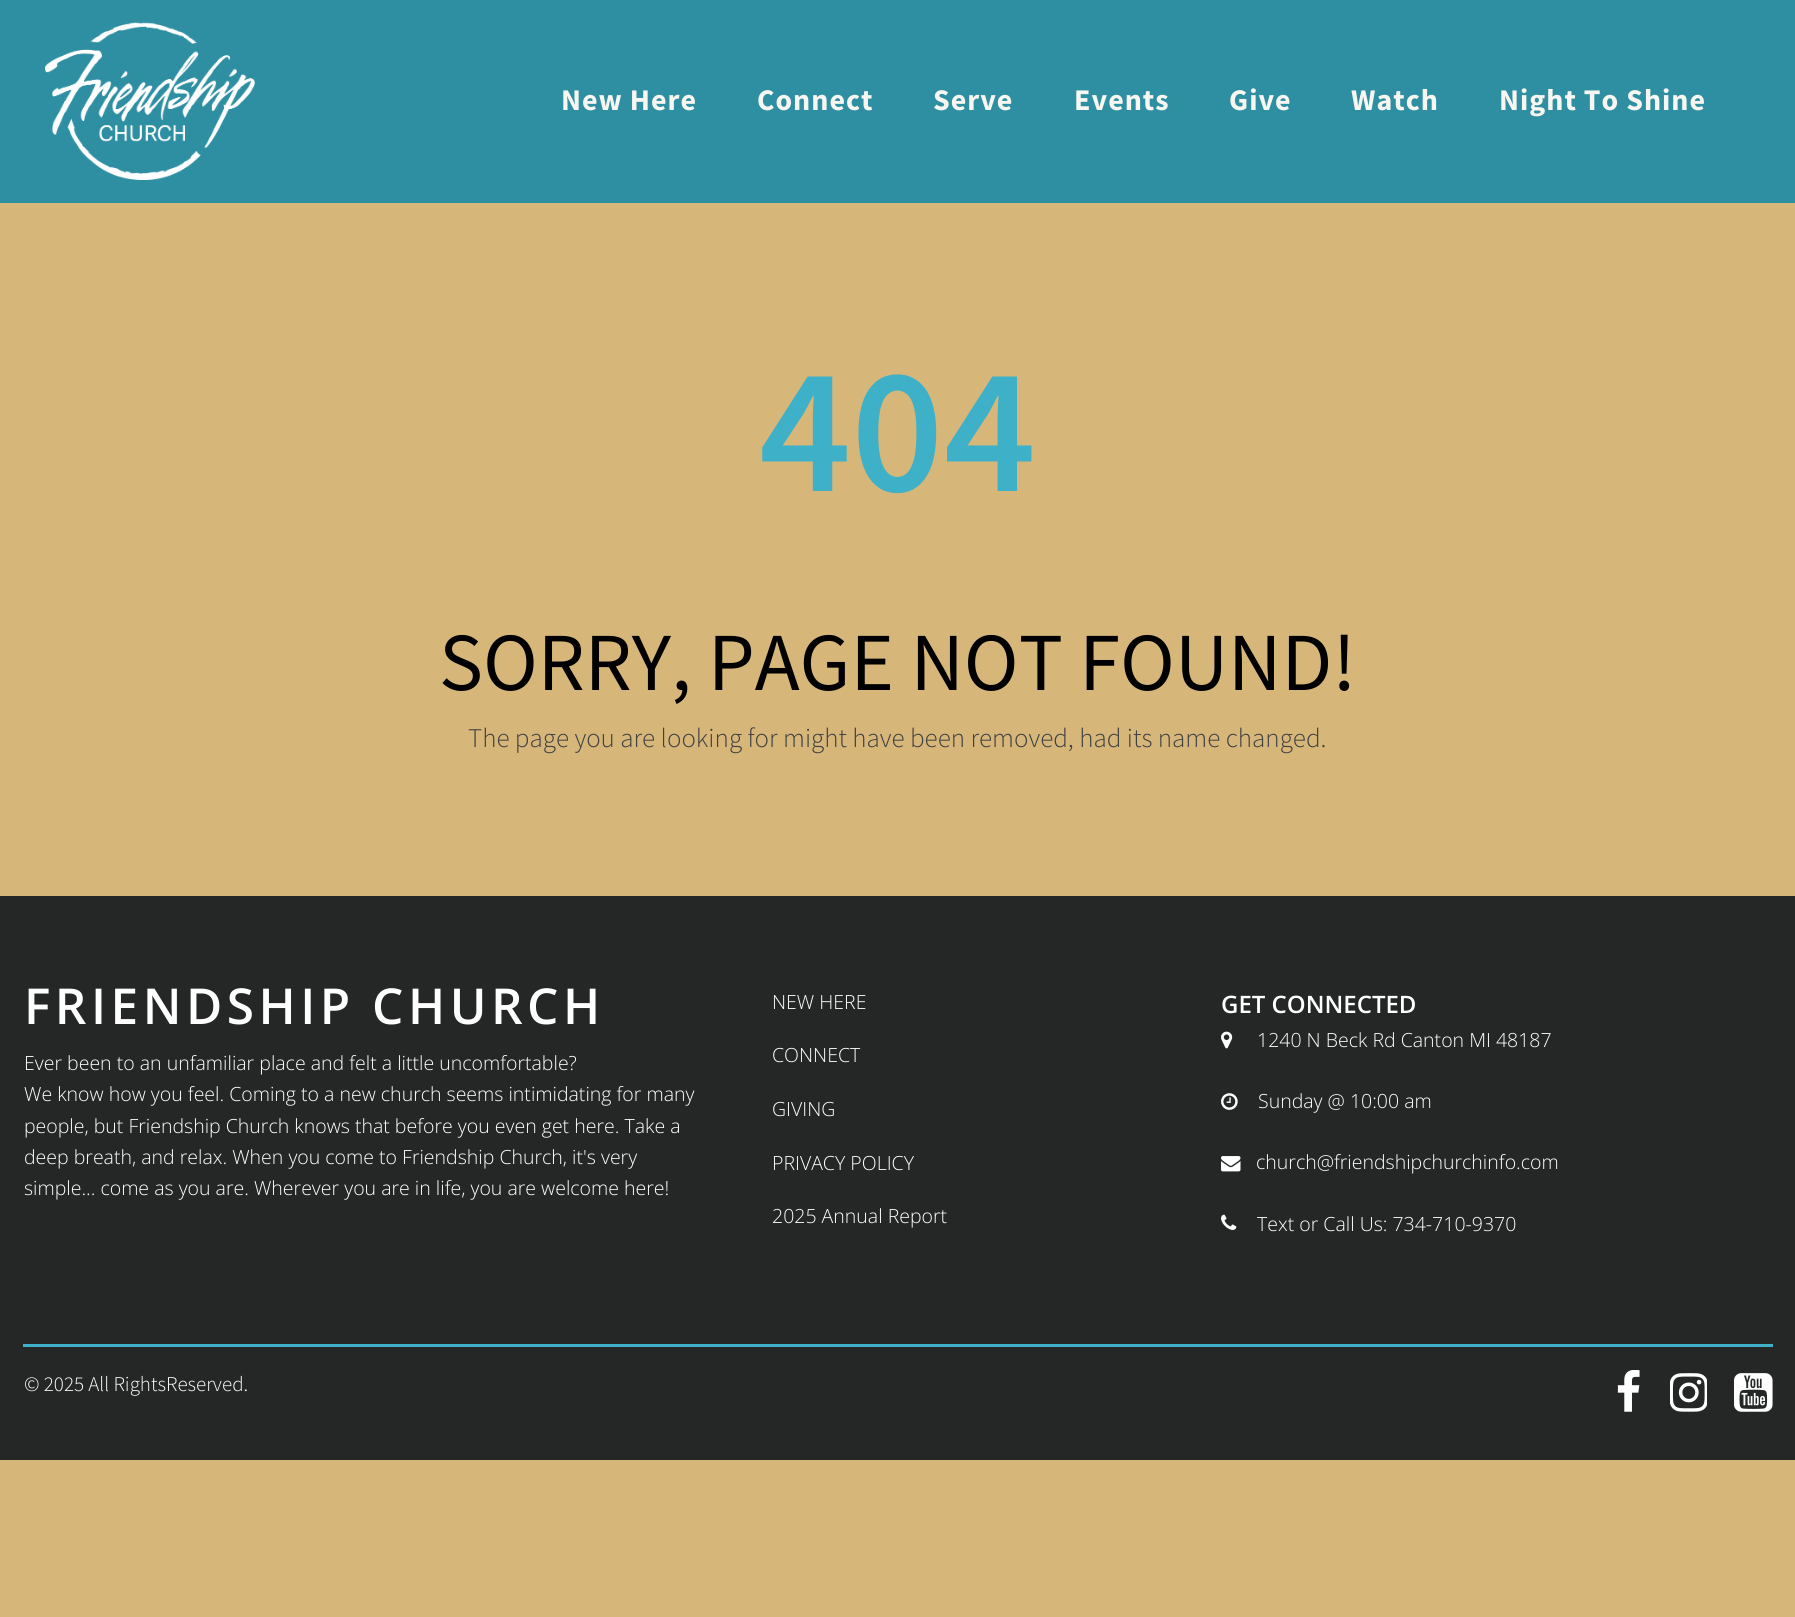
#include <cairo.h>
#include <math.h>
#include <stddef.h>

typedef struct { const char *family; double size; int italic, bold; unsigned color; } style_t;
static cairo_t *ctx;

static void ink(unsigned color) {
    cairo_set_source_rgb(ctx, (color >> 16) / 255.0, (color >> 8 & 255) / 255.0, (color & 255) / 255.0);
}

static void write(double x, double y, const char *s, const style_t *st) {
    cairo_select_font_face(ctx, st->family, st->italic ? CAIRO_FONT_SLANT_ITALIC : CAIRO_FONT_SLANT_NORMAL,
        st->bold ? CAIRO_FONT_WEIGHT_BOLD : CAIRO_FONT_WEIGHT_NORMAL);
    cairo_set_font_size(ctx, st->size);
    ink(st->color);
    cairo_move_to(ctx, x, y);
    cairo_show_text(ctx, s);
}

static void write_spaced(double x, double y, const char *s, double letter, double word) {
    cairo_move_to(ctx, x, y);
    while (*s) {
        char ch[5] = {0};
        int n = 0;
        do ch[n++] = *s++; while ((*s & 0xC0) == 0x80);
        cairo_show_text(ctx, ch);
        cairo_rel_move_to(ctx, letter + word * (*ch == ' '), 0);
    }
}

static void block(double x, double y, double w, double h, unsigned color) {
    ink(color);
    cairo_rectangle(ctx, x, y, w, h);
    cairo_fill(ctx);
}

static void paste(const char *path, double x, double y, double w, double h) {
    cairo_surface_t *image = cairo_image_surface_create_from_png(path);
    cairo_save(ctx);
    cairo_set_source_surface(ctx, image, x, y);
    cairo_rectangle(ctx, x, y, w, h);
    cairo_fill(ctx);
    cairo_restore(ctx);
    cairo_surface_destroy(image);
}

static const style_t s1 = {"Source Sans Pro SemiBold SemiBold", 180, 0, 0, 0x3eb1c8};
static const style_t s2 = {"Source Sans Pro", 82.5, 0, 0, 0x000000};
static const style_t s3 = {"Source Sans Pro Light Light", 27, 0, 0, 0x3e4041};
static const style_t s4 = {"Open Sans Light", 19.5, 0, 0, 0xffffff};
static const style_t s5 = {"Open Sans SemiBold", 24, 0, 0, 0xffffff};
static const style_t s6 = {"Source Sans Pro Light Light", 21, 0, 0, 0xffffff};

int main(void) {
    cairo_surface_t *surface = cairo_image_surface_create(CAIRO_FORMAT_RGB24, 1795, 1617);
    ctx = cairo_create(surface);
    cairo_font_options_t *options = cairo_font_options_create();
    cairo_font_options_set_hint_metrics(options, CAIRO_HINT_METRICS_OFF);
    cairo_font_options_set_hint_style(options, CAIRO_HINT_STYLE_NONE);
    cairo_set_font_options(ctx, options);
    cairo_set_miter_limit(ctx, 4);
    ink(0xd7b67a);
    cairo_paint(ctx);
    block(0, 0, 1795, 203, 0x2e8fa3);
    paste("pic1.png", 45, 22, 210, 158);
    cairo_select_font_face(ctx, "Source Sans Pro", CAIRO_FONT_SLANT_NORMAL, CAIRO_FONT_WEIGHT_BOLD);
    cairo_set_font_size(ctx, 30);
    ink(0xf8f6f0);
    write_spaced(561, 110, "New Here", 1, 0);
    write_spaced(757, 110, "Connect", 1, 0);
    write_spaced(933, 110, "Serve", 1, 0);
    write_spaced(1074, 110, "Events", 1, 0);
    write_spaced(1229, 110, "Give", 1, 0);
    write_spaced(1351, 110, "Watch", 1, 0);
    write_spaced(1499, 110, "Night To Shine", 1, 0);
    write(759, 491, "404", &s1);
    write(439, 690, "SORRY, PAGE NOT FOUND!", &s2);
    write(468, 747, "The page you are looking for might have been removed, had its name changed.", &s3);
    block(0, 896, 1795, 564, 0x252727);
    cairo_select_font_face(ctx, "Open Sans SemiBold", CAIRO_FONT_SLANT_NORMAL, CAIRO_FONT_WEIGHT_NORMAL);
    cairo_set_font_size(ctx, 49.5);
    ink(0xffffff);
    write_spaced(24, 1024, "FRIENDSHIP CHURCH", 4.5, 0);
    write(24, 1070, "Ever been to an unfamiliar place and felt a little uncomfortable?", &s4);
    write(24, 1101, "We know how you feel. Coming to a new church seems intimidating for many", &s4);
    write(24, 1133, "people, but Friendship Church knows that before you even get here. Take a", &s4);
    write(24, 1164, "deep breath, and relax. When you come to Friendship Church, it's very", &s4);
    write(24, 1195, "simple... come as you are. Wherever you are in life, you are welcome here!", &s4);
    write(772, 1009, "NEW HERE", &s4);
    write(772, 1062, "CONNECT", &s4);
    write(772, 1116, "GIVING", &s4);
    write(772, 1170, "PRIVACY POLICY", &s4);
    write(772, 1223, "2025 Annual Report", &s4);
    write(1221, 1013, "GET CONNECTED", &s5);
    paste("pic2.png", 1221, 1031, 12, 18);
    write(1257, 1047, "1240 N Beck Rd Canton MI 48187", &s4);
    paste("pic3.png", 1221, 1093, 17, 17);
    write(1258, 1108, "Sunday @ 10:00 am", &s4);
    paste("pic4.png", 1221, 1156, 20, 16);
    write(1256, 1169, "church@friendshipchurchinfo.com", &s4);
    paste("pic5.png", 1221, 1214, 16, 16);
    write(1257, 1231, "Text or Call Us: 734-710-9370", &s4);
    block(23, 1344, 1750, 3, 0x3eb1c8);
    write(24, 1391, "© 2025 All RightsReserved.", &s6);
    paste("pic6.png", 1617, 1370, 23, 42);
    paste("pic7.png", 1670, 1373, 37, 39);
    paste("pic8.png", 1734, 1373, 39, 39);
    cairo_surface_write_to_png(surface, "screenshot.png");
    cairo_font_options_destroy(options);
    cairo_destroy(ctx);
    cairo_surface_destroy(surface);
    return 0;
}
